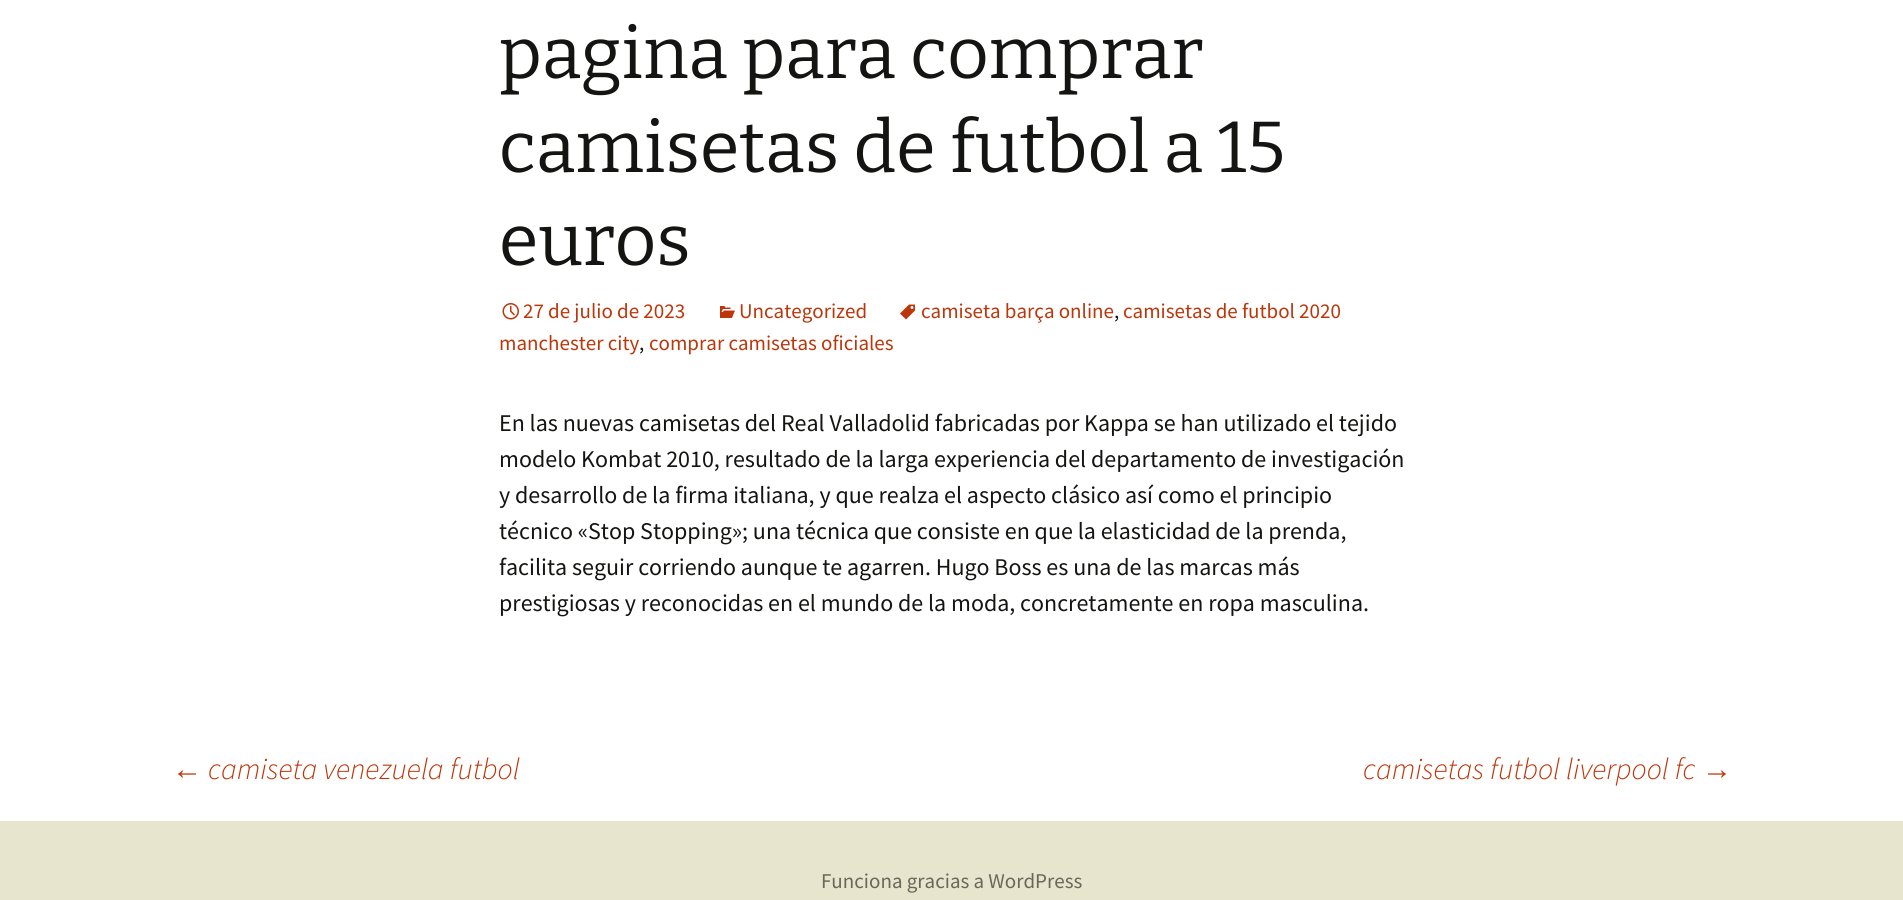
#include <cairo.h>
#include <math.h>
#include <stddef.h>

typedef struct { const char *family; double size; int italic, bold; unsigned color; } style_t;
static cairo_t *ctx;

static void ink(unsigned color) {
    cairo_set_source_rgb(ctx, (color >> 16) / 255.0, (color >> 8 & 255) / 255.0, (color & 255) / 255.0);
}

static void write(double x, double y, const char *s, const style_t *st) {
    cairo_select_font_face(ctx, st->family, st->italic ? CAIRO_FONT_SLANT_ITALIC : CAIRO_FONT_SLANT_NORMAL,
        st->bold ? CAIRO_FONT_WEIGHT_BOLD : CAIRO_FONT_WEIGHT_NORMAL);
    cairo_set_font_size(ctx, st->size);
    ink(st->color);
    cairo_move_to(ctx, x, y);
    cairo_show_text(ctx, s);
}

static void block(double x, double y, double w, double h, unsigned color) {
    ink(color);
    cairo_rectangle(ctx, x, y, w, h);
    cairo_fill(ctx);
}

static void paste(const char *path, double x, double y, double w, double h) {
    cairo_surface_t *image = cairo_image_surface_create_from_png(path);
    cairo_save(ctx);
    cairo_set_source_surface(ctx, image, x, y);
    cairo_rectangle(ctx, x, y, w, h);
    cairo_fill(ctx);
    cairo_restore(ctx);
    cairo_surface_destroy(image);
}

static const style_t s1 = {"Bitter Thin", 72, 0, 0, 0x141412};
static const style_t s2 = {"Source Sans Pro", 21, 0, 0, 0xbc360a};
static const style_t s3 = {"Source Sans Pro", 21, 0, 0, 0x141412};
static const style_t s4 = {"Source Sans Pro", 24, 0, 0, 0x141412};
static const style_t s5 = {"Liberation Sans", 30, 1, 0, 0xbc360a};
static const style_t s6 = {"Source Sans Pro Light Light", 30, 1, 0, 0xbc360a};
static const style_t s7 = {"Source Sans Pro", 21, 0, 0, 0x686758};

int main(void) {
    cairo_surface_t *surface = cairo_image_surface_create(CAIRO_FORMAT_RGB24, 1903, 900);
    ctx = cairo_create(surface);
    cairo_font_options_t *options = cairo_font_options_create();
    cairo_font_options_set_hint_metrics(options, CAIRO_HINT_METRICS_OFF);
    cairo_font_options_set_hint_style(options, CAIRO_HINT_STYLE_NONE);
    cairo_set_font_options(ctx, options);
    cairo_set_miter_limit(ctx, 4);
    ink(0xffffff);
    cairo_paint(ctx);
    write(499, 78, "pagina para comprar", &s1);
    write(499, 172, "camisetas de futbol a 15", &s1);
    write(499, 265, "euros", &s1);
    paste("pic1.png", 900, 304, 15, 16);
    write(921, 318, "camiseta barça online", &s2);
    write(1114, 318, ",", &s3);
    write(1123, 318, "camisetas de futbol 2020", &s2);
    write(499, 350, "manchester city", &s2);
    write(639, 350, ",", &s3);
    write(649, 350, "comprar camisetas oficiales", &s2);
    paste("pic2.png", 502, 303, 17, 17);
    write(523, 318, "27 de julio de 2023", &s2);
    paste("pic3.png", 720, 306, 15, 12);
    write(739, 318, "Uncategorized", &s2);
    write(499, 431, "En las nuevas camisetas del Real Valladolid fabricadas por Kappa se han utilizado el tejido", &s4);
    write(499, 467, "modelo Kombat 2010, resultado de la larga experiencia del departamento de investigación", &s4);
    write(499, 503, "y desarrollo de la firma italiana, y que realza el aspecto clásico así como el principio", &s4);
    write(499, 539, "técnico «Stop Stopping»; una técnica que consiste en que la elasticidad de la prenda,", &s4);
    write(499, 575, "facilita seguir corriendo aunque te agarren. Hugo Boss es una de las marcas más", &s4);
    write(499, 611, "prestigiosas y reconocidas en el mundo de la moda, concretamente en ropa masculina.", &s4);
    write(172, 779, "←", &s5);
    write(208, 779, "camiseta venezuela futbol", &s6);
    write(1363, 779, "camisetas futbol liverpool fc", &s6);
    write(1702, 779, "→", &s5);
    block(0, 821, 1903, 79, 0xe8e5ce);
    write(821, 888, "Funciona gracias a WordPress", &s7);
    cairo_surface_write_to_png(surface, "screenshot.png");
    cairo_font_options_destroy(options);
    cairo_destroy(ctx);
    cairo_surface_destroy(surface);
    return 0;
}
